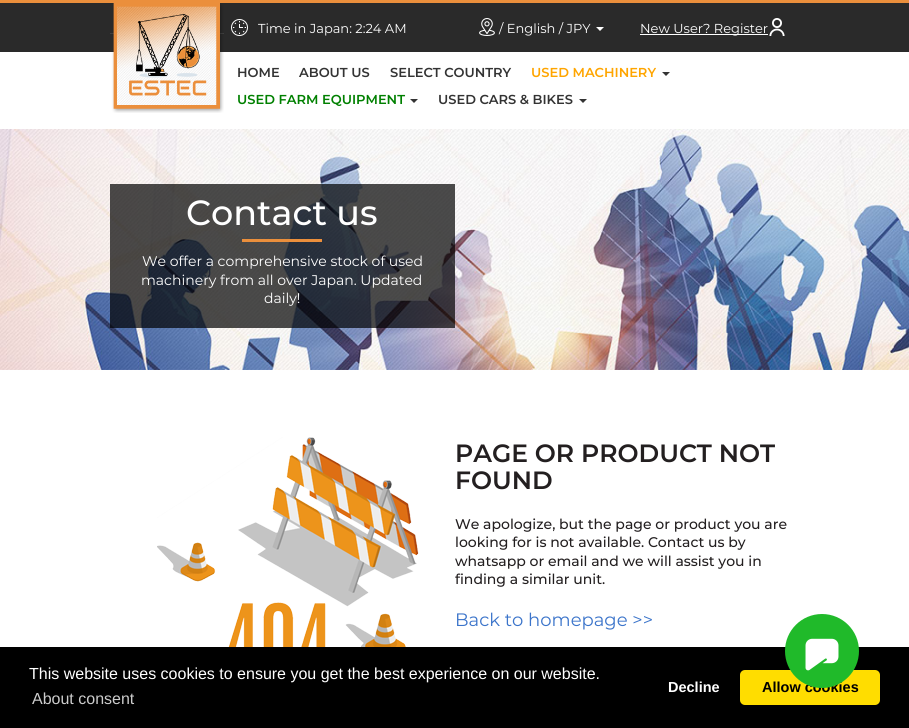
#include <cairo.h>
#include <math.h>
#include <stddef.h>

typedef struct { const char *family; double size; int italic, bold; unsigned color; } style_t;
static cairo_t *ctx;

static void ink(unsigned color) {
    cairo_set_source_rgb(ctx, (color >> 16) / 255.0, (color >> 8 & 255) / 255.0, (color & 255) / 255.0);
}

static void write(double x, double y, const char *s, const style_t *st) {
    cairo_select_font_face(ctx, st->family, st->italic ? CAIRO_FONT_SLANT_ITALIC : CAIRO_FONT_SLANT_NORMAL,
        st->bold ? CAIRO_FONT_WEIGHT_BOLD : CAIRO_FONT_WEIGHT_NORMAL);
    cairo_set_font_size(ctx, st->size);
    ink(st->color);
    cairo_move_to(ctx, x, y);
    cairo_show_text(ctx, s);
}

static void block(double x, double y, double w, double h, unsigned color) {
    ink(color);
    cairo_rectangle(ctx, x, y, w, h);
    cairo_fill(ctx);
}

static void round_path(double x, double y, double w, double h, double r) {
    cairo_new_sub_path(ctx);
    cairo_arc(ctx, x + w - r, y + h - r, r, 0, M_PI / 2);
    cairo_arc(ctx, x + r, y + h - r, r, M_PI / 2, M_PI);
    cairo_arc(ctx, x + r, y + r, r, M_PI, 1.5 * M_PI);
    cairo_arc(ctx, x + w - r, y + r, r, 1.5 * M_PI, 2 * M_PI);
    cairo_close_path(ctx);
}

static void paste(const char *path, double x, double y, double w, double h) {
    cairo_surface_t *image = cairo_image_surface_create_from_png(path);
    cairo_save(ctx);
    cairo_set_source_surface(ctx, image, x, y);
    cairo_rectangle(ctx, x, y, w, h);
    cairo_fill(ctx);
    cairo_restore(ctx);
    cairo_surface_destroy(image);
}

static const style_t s1 = {"Montserrat", 13, 0, 0, 0xffffff};
static const style_t s2 = {"Montserrat SemiBold", 13, 0, 0, 0x333333};
static const style_t s3 = {"Montserrat SemiBold", 13, 0, 0, 0xffa500};
static const style_t s4 = {"Montserrat SemiBold", 13, 0, 0, 0x008000};
static const style_t s5 = {"Montserrat Medium", 35, 0, 0, 0xffffff};
static const style_t s6 = {"Montserrat", 14, 0, 0, 0xffffff};
static const style_t s7 = {"Montserrat SemiBold", 25, 0, 0, 0x231f20};
static const style_t s8 = {"Montserrat Medium", 14, 0, 0, 0x231f20};
static const style_t s9 = {"Montserrat", 18, 0, 0, 0x3b74ca};
static const style_t s10 = {"Liberation Sans", 14.5, 0, 1, 0x000000};
static const style_t s11 = {"Liberation Sans", 16, 0, 0, 0xffffff};
static const style_t s12 = {"Liberation Sans", 16, 0, 0, 0xcccccc};
static const style_t s13 = {"Liberation Sans", 14.5, 0, 1, 0xffffff};

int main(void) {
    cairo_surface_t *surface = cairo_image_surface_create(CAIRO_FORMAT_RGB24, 909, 728);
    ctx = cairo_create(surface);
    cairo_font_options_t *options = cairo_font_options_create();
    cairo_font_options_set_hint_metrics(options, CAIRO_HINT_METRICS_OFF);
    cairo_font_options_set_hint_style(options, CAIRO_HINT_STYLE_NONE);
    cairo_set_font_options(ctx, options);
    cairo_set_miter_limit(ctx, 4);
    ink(0xffffff);
    cairo_paint(ctx);
    block(0, 3, 909, 49, 0x2a2a2a);
    block(0, 0, 909, 3, 0xeb8f3c);
    paste("pic1.png", 110, 3, 114, 110);
    paste("pic2.png", 231, 19, 17, 17);
    write(258, 33, "Time in Japan: 2:24 AM", &s1);
    paste("pic3.png", 479, 18, 16, 18);
    write(499, 33, "/ English / JPY", &s1);
    cairo_new_path(ctx);
    cairo_move_to(ctx, 596, 27);
    cairo_line_to(ctx, 604, 27);
    cairo_line_to(ctx, 600, 31);
    cairo_close_path(ctx);
    cairo_fill(ctx);
    block(640, 34, 128, 1, 0xffffff);
    write(640, 33, "New User? Register", &s1);
    paste("pic4.png", 769, 18, 16, 18);
    write(237, 77, "HOME", &s2);
    write(299, 77, "ABOUT US", &s2);
    write(390, 77, "SELECT COUNTRY", &s2);
    write(531, 77, "USED MACHINERY", &s3);
    ink(0x333333);
    cairo_new_path(ctx);
    cairo_move_to(ctx, 662, 72);
    cairo_line_to(ctx, 670, 72);
    cairo_line_to(ctx, 666, 76);
    cairo_close_path(ctx);
    cairo_fill(ctx);
    write(237, 104, "USED FARM EQUIPMENT", &s4);
    ink(0x333333);
    cairo_new_path(ctx);
    cairo_move_to(ctx, 410, 99);
    cairo_line_to(ctx, 418, 99);
    cairo_line_to(ctx, 414, 103);
    cairo_close_path(ctx);
    cairo_fill(ctx);
    write(438, 104, "USED CARS & BIKES", &s2);
    cairo_new_path(ctx);
    cairo_move_to(ctx, 579, 99);
    cairo_line_to(ctx, 587, 99);
    cairo_line_to(ctx, 583, 103);
    cairo_close_path(ctx);
    cairo_fill(ctx);
    paste("pic5.png", 0, 129, 909, 241);
    cairo_set_source_rgba(ctx, 0, 0, 0, 0.7);
    cairo_rectangle(ctx, 110, 184, 345, 144);
    cairo_fill(ctx);
    write(186, 225, "Contact us", &s5);
    block(242, 239, 80, 3, 0xeb8f3c);
    write(142, 266, "We offer a comprehensive stock of used", &s6);
    write(141, 285, "machinery from all over Japan. Updated", &s6);
    write(264, 303, "daily!", &s6);
    paste("pic6.png", 157, 437, 262, 210);
    write(455, 462, "PAGE OR PRODUCT NOT", &s7);
    write(455, 489, "FOUND", &s7);
    write(455, 529, "We apologize, but the page or product you are", &s8);
    write(455, 547, "looking for is not available. Contact us by", &s8);
    write(455, 566, "whatsapp or email and we will assist you in", &s8);
    write(455, 584, "finding a similar unit.", &s8);
    write(455, 626, "Back to homepage >>", &s9);
    block(0, 647, 909, 81, 0x000000);
    ink(0xffdd00);
    round_path(740, 670, 140, 35, 5);
    cairo_fill(ctx);
    write(762, 692, "Allow cookies", &s10);
    ink(0x20ba2a);
    cairo_new_path(ctx);
    cairo_arc(ctx, 822, 651, 37, 0, 2 * M_PI);
    cairo_fill(ctx);
    paste("pic7.png", 805, 638, 34, 33);
    write(29, 679, "This website uses cookies to ensure you get the best experience on our website.", &s11);
    write(32, 704, "About consent", &s12);
    write(668, 692, "Decline", &s13);
    cairo_surface_write_to_png(surface, "screenshot.png");
    cairo_font_options_destroy(options);
    cairo_destroy(ctx);
    cairo_surface_destroy(surface);
    return 0;
}
